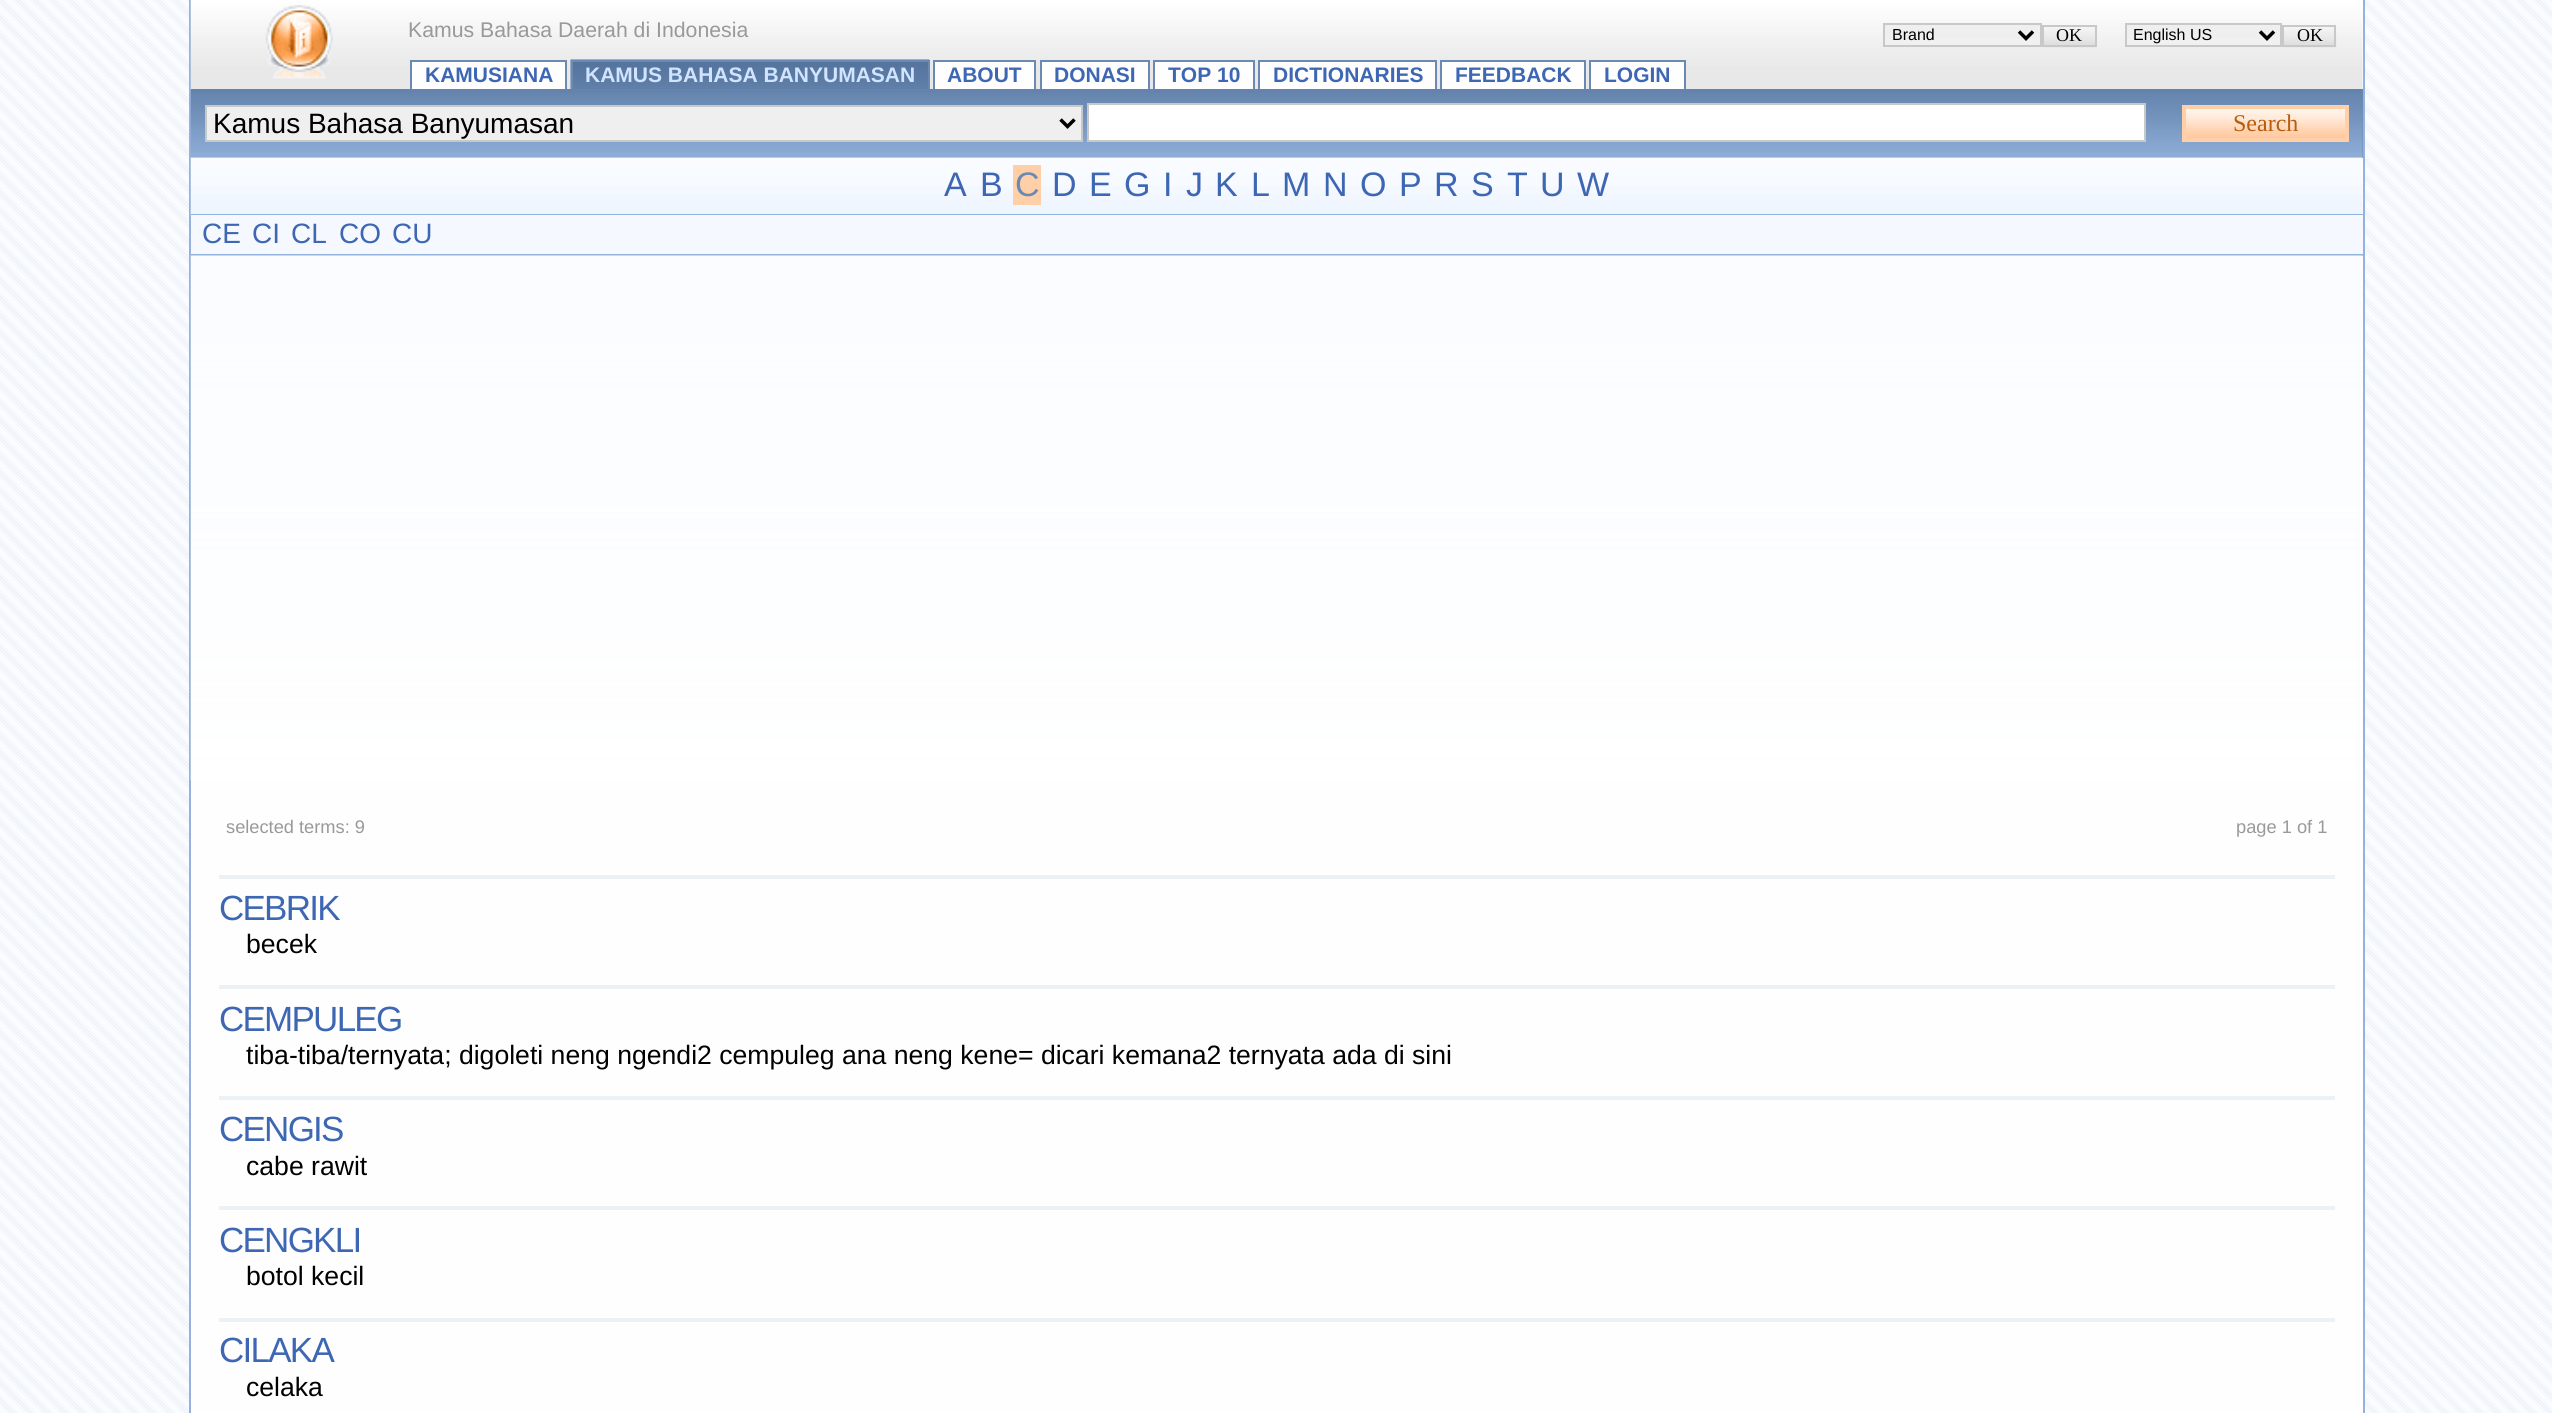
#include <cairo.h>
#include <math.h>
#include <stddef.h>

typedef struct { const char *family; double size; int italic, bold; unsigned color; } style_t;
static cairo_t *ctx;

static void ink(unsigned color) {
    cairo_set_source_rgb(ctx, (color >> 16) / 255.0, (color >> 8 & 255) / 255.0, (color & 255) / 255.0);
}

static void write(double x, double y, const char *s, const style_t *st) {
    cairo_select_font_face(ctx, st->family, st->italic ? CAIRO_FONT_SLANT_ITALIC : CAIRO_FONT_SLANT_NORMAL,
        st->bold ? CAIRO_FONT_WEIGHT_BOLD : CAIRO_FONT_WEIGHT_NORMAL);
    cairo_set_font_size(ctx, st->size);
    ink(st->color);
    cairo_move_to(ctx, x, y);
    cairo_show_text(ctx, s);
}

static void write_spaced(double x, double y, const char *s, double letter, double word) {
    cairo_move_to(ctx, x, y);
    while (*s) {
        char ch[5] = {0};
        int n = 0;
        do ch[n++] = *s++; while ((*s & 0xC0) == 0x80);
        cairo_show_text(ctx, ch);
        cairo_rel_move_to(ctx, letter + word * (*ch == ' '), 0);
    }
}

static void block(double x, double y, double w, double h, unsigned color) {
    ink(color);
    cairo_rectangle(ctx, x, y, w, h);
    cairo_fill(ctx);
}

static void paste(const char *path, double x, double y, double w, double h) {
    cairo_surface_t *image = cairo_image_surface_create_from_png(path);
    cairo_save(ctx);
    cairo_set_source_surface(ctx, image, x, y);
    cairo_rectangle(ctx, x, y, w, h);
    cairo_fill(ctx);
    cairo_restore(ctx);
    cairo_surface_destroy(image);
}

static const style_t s1 = {"Liberation Sans", 21.25, 0, 0, 0x999999};
static const style_t s2 = {"Liberation Sans", 16, 0, 0, 0x000000};
static const style_t s3 = {"Liberation Serif", 18, 0, 0, 0x000000};
static const style_t s4 = {"Liberation Sans", 21, 0, 1, 0x3e67b3};
static const style_t s5 = {"Liberation Sans", 21, 0, 1, 0xd1e4ff};
static const style_t s6 = {"Liberation Sans", 28, 0, 0, 0x000000};
static const style_t s7 = {"Liberation Serif", 24, 0, 0, 0xb95c0c};
static const style_t s8 = {"Liberation Sans", 34, 0, 0, 0x3e67b3};
static const style_t s9 = {"Liberation Sans", 34, 0, 0, 0x6b8ab3};
static const style_t s10 = {"Liberation Sans", 28, 0, 0, 0x3e67b3};
static const style_t s11 = {"Liberation Sans", 18.25, 0, 0, 0x999999};
static const style_t s12 = {"Liberation Sans", 26.6, 0, 0, 0x000000};

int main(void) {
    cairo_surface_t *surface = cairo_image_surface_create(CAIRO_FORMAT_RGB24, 2552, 1413);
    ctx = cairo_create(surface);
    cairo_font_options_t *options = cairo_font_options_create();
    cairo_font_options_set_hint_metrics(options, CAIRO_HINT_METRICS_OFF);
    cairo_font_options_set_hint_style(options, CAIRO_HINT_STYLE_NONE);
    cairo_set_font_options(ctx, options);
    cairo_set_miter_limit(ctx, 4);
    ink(0xffffff);
    cairo_paint(ctx);
    paste("pic1.png", 0, 0, 2552, 1413);
    block(2363, 0, 2, 1413, 0x94b3dc);
    block(189, 0, 2, 1413, 0x94b3dc);
    block(2362, 0, 1, 89, 0xfefeff);
    paste("pic2.png", 190, 0, 2173, 91);
    paste("pic3.png", 265, 5, 68, 74);
    write(408, 37, "Kamus Bahasa Daerah di Indonesia", &s1);
    block(1885, 25, 155, 14, 0xefefef);
    cairo_rectangle(ctx, 1884, 24, 157, 22);
    ink(0xc8c8c8);
    cairo_stroke(ctx);
    cairo_new_path(ctx);
    cairo_move_to(ctx, 2019, 31.5);
    cairo_line_to(ctx, 2026, 38.5);
    cairo_line_to(ctx, 2033, 31.5);
    ink(0x000000);
    cairo_set_line_width(ctx, 3.5);
    cairo_stroke(ctx);
    write(1892, 40, "Brand", &s2);
    paste("pic4.png", 2042, 27, 55, 21);
    cairo_rectangle(ctx, 2043, 26, 53, 20);
    ink(0xc8c8c8);
    cairo_set_line_width(ctx, 2);
    cairo_stroke(ctx);
    write(2056, 41, "OK", &s3);
    block(2127, 25, 153, 14, 0xefefef);
    cairo_rectangle(ctx, 2126, 24, 155, 22);
    ink(0xc8c8c8);
    cairo_stroke(ctx);
    cairo_new_path(ctx);
    cairo_move_to(ctx, 2260, 31.5);
    cairo_line_to(ctx, 2267, 38.5);
    cairo_line_to(ctx, 2274, 31.5);
    ink(0x000000);
    cairo_set_line_width(ctx, 3.5);
    cairo_stroke(ctx);
    write(2133, 40, "English US", &s2);
    paste("pic5.png", 2282, 26, 55, 22);
    cairo_rectangle(ctx, 2283, 26, 52, 20);
    ink(0xc8c8c8);
    cairo_set_line_width(ctx, 2);
    cairo_stroke(ctx);
    write(2297, 41, "OK", &s3);
    block(412, 62, 153, 27, 0xfefeff);
    block(410, 60, 157, 2, 0x6b8ab3);
    block(565, 60, 2, 29, 0x6b8ab3);
    block(410, 60, 2, 29, 0x6b8ab3);
    write(425, 82, "KAMUSIANA", &s4);
    paste("pic6.png", 570, 59, 360, 30);
    block(571, 60, 358, 2, 0x6b8ab3);
    block(928, 60, 2, 29, 0x6b8ab3);
    block(571, 60, 2, 29, 0x6b8ab3);
    write(585, 82, "KAMUS BAHASA BANYUMASAN", &s5);
    block(935, 62, 99, 27, 0xfefeff);
    block(933, 60, 103, 2, 0x6b8ab3);
    block(1034, 60, 2, 29, 0x6b8ab3);
    block(933, 60, 2, 29, 0x6b8ab3);
    write(947, 82, "ABOUT", &s4);
    block(1042, 62, 106, 27, 0xfefeff);
    block(1040, 60, 110, 2, 0x6b8ab3);
    block(1148, 60, 2, 29, 0x6b8ab3);
    block(1040, 60, 2, 29, 0x6b8ab3);
    write(1054, 82, "DONASI", &s4);
    block(1155, 62, 98, 27, 0xfefeff);
    block(1153, 60, 102, 2, 0x6b8ab3);
    block(1253, 60, 2, 29, 0x6b8ab3);
    block(1153, 60, 2, 29, 0x6b8ab3);
    write(1168, 82, "TOP 10", &s4);
    block(1260, 62, 175, 27, 0xfefeff);
    block(1258, 60, 179, 2, 0x6b8ab3);
    block(1435, 60, 2, 29, 0x6b8ab3);
    block(1258, 60, 2, 29, 0x6b8ab3);
    write(1273, 82, "DICTIONARIES", &s4);
    block(1442, 62, 142, 27, 0xfefeff);
    block(1440, 60, 146, 2, 0x6b8ab3);
    block(1584, 60, 2, 29, 0x6b8ab3);
    block(1440, 60, 2, 29, 0x6b8ab3);
    write(1455, 82, "FEEDBACK", &s4);
    block(1591, 62, 93, 27, 0xfefeff);
    block(1589, 60, 96, 2, 0x6b8ab3);
    block(1684, 60, 2, 29, 0x6b8ab3);
    block(1589, 60, 2, 29, 0x6b8ab3);
    write(1604, 82, "LOGIN", &s4);
    block(191, 89, 2172, 69, 0x6b8ab3);
    paste("pic7.png", 190, 89, 2173, 69);
    ink(0xefefef);
    cairo_rectangle(ctx, 206, 106, 876, 35);
    cairo_fill_preserve(ctx);
    ink(0xc8c8c8);
    cairo_stroke(ctx);
    cairo_new_path(ctx);
    cairo_move_to(ctx, 1060.5, 119.5);
    cairo_line_to(ctx, 1067.5, 126.5);
    cairo_line_to(ctx, 1074.5, 119.5);
    ink(0x000000);
    cairo_set_line_width(ctx, 3.5);
    cairo_stroke(ctx);
    write(213, 133, "Kamus Bahasa Banyumasan", &s6);
    ink(0xffffff);
    cairo_rectangle(ctx, 1088, 104, 1057, 37);
    cairo_fill_preserve(ctx);
    ink(0xc8c8c8);
    cairo_set_line_width(ctx, 2);
    cairo_stroke(ctx);
    paste("pic8.png", 2186, 109, 159, 29);
    cairo_rectangle(ctx, 2184, 107, 163, 33);
    ink(0xffd0a7);
    cairo_set_line_width(ctx, 4);
    cairo_stroke(ctx);
    write(2233, 131, "Search", &s7);
    block(2362, 158, 1, 56, 0xfefefe);
    paste("pic9.png", 190, 157, 2173, 59);
    block(191, 214, 2172, 1, 0x94b3dc);
    write(944, 196, "A", &s8);
    write(980, 196, "B", &s8);
    block(1013, 165, 28, 40, 0xffd0a7);
    write(1015, 196, "C", &s9);
    write(1052, 196, "D", &s8);
    write(1089, 196, "E", &s8);
    write(1124, 196, "G", &s8);
    write(1163, 196, "I", &s8);
    write(1186, 196, "J", &s8);
    write(1215, 196, "K", &s8);
    write(1251, 196, "L", &s8);
    write(1282, 196, "M", &s8);
    write(1323, 196, "N", &s8);
    write(1360, 196, "O", &s8);
    write(1399, 196, "P", &s8);
    write(1434, 196, "R", &s8);
    write(1471, 196, "S", &s8);
    write(1507, 196, "T", &s8);
    write(1540, 196, "U", &s8);
    write(1577, 196, "W", &s8);
    block(191, 215, 2172, 39, 0xf5f9ff);
    block(191, 254, 2172, 2, 0x94b3dc);
    write(202, 243, "CE", &s10);
    write(252, 243, "CI", &s10);
    write(291, 243, "CL", &s10);
    write(339, 243, "CO", &s10);
    write(392, 243, "CU", &s10);
    block(191, 256, 2172, 1157, 0xfefeff);
    paste("pic10.png", 190, 255, 2173, 526);
    write(226, 833, "selected terms: 9", &s11);
    write(2236, 833, "page 1 of 1", &s11);
    block(219, 875, 2116, 4, 0xebf2f7);
    cairo_set_font_size(ctx, 35);
    ink(0x3e67b3);
    write_spaced(219, 920, "CEBRIK", -1.75, 0);
    write(246, 953, "becek", &s12);
    block(219, 985, 2116, 4, 0xebf2f7);
    cairo_set_font_size(ctx, 35);
    ink(0x3e67b3);
    write_spaced(219, 1031, "CEMPULEG", -1.75, 0);
    write(246, 1064, "tiba-tiba/ternyata; digoleti neng ngendi2 cempuleg ana neng kene= dicari kemana2 ternyata ada di sini", &s12);
    block(219, 1096, 2116, 4, 0xebf2f7);
    cairo_set_font_size(ctx, 35);
    ink(0x3e67b3);
    write_spaced(219, 1141, "CENGIS", -1.75, 0);
    write(246, 1175, "cabe rawit", &s12);
    block(219, 1206, 2116, 4, 0xebf2f7);
    cairo_set_font_size(ctx, 35);
    ink(0x3e67b3);
    write_spaced(219, 1252, "CENGKLI", -1.75, 0);
    write(246, 1285, "botol kecil", &s12);
    block(219, 1318, 2116, 4, 0xebf2f7);
    cairo_set_font_size(ctx, 35);
    ink(0x3e67b3);
    write_spaced(219, 1362, "CILAKA", -1.75, 0);
    write(246, 1396, "celaka", &s12);
    cairo_surface_write_to_png(surface, "screenshot.png");
    cairo_font_options_destroy(options);
    cairo_destroy(ctx);
    cairo_surface_destroy(surface);
    return 0;
}
